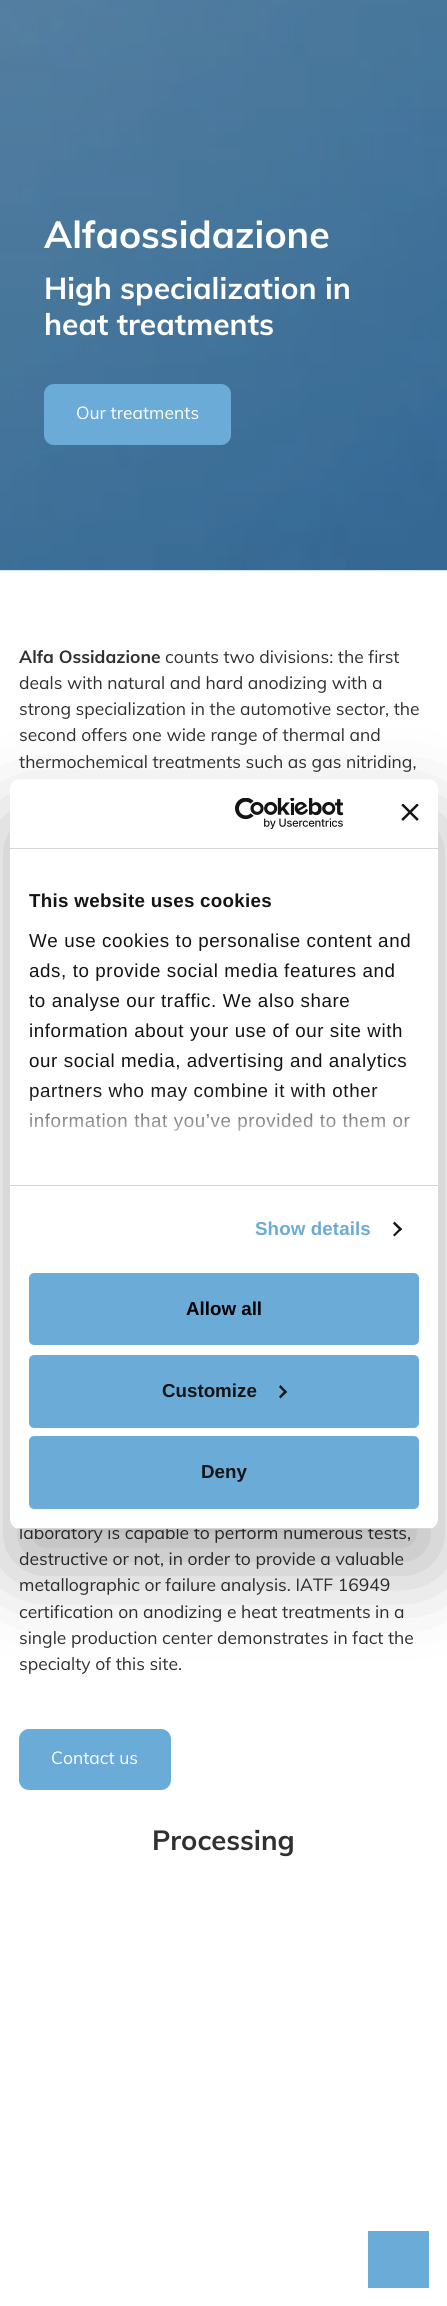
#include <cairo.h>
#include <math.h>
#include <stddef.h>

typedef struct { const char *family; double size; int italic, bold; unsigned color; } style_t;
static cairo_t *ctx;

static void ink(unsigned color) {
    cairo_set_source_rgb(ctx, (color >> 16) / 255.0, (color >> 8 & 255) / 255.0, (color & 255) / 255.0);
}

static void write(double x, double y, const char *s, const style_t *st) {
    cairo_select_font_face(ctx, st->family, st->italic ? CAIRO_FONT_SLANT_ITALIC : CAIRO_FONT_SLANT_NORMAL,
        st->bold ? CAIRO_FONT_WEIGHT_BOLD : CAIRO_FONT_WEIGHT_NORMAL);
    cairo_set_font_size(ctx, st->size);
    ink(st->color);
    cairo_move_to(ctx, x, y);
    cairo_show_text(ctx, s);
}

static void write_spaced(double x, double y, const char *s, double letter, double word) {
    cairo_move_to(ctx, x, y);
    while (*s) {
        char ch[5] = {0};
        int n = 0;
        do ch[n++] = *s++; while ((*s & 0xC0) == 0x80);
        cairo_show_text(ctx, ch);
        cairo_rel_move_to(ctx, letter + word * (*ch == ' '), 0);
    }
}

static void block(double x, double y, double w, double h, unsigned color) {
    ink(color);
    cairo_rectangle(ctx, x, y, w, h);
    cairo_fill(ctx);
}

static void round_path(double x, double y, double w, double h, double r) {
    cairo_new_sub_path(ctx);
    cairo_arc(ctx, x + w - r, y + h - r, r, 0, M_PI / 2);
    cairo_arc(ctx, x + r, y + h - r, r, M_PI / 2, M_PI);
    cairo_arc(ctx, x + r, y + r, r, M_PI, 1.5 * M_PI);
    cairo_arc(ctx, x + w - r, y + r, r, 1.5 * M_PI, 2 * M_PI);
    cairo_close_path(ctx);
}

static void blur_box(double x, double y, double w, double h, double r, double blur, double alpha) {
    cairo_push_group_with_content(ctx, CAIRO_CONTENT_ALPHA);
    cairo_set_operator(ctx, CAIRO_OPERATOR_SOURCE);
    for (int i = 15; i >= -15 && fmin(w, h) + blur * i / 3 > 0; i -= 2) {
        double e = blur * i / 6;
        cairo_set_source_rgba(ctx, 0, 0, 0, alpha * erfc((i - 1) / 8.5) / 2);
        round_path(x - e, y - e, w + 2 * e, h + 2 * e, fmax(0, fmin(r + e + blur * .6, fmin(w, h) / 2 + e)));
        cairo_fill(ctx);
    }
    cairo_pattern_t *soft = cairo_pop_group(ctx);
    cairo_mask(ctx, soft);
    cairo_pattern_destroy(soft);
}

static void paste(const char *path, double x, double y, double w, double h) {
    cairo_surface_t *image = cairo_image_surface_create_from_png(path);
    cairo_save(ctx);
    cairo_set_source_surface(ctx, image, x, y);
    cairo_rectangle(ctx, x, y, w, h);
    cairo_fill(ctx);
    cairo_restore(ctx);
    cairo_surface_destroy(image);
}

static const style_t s1 = {"Muli", 37.5, 0, 1, 0xffffff};
static const style_t s2 = {"Muli", 30, 0, 1, 0xffffff};
static const style_t s3 = {"Muli", 17.5, 0, 0, 0xffffff};
static const style_t s4 = {"Muli", 17.5, 0, 1, 0x303030};
static const style_t s5 = {"Muli", 17.5, 0, 0, 0x303030};
static const style_t s6 = {"Muli", 27.5, 0, 1, 0x303030};
static const style_t s7 = {"Liberation Sans", 18.75, 0, 1, 0x000000};
static const style_t s8 = {"Liberation Sans", 18.75, 0, 1, 0x141414};

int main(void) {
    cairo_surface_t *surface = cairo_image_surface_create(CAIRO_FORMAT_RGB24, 447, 2306);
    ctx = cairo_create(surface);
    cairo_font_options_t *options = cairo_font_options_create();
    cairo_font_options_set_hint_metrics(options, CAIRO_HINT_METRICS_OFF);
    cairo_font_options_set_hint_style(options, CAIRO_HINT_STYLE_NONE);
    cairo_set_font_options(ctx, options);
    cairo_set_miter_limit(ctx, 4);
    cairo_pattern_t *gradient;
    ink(0xffffff);
    cairo_paint(ctx);
    paste("pic1.png", 0, 0, 447, 571);
    write(44, 248, "Alfaossidazione", &s1);
    write(44, 299, "High specialization in", &s2);
    write(44, 335, "heat treatments", &s2);
    ink(0x6aabd8);
    round_path(44, 384, 187, 61, 10);
    cairo_fill(ctx);
    write(76, 419, "Our treatments", &s3);
    write(19, 663, "Alfa Ossidazione", &s4);
    write(165, 663, "counts two divisions: the first", &s5);
    write(19, 689, "deals with natural and hard anodizing with a", &s5);
    write(19, 715, "strong specialization in the automotive sector, the", &s5);
    write(19, 741, "second offers one wide range of thermal and", &s5);
    write(19, 768, "thermochemical treatments such as gas nitriding,", &s5);
    write(19, 1539, "laboratory is capable to perform numerous tests,", &s5);
    write(19, 1565, "destructive or not, in order to provide a valuable", &s5);
    write(19, 1591, "metallographic or failure analysis. IATF 16949", &s5);
    write(19, 1618, "certification on anodizing e heat treatments in a", &s5);
    write(19, 1644, "single production center demonstrates in fact the", &s5);
    write(19, 1670, "specialty of this site.", &s5);
    ink(0x6aabd8);
    round_path(19, 1729, 152, 61, 10);
    cairo_fill(ctx);
    write(51, 1764, "Contact us", &s3);
    write(152, 1850, "Processing", &s6);
    block(368, 2231, 61, 57, 0x6aabd8);
    ink(0x000000);
    blur_box(10, 819, 428, 750, 10, 42.5, 0.3);
    ink(0xffffff);
    round_path(10, 779, 428, 750, 10);
    cairo_fill(ctx);
    block(10, 848, 428, 1, 0xd6d6d6);
    paste("pic2.png", 235, 798, 109, 31);
    paste("pic3.png", 401, 804, 18, 17);
    block(10, 1185, 428, 1, 0xd6d6d6);
    cairo_select_font_face(ctx, "Liberation Sans", CAIRO_FONT_SLANT_NORMAL, CAIRO_FONT_WEIGHT_BOLD);
    cairo_set_font_size(ctx, 18.75);
    ink(0x141414);
    write_spaced(29, 907, "This website uses cookies", 0.3, 0);
    cairo_select_font_face(ctx, "Liberation Sans", CAIRO_FONT_SLANT_NORMAL, CAIRO_FONT_WEIGHT_NORMAL);
    write_spaced(29, 947, "We use cookies to personalise content and", 0.6, 0);
    write_spaced(29, 977, "ads, to provide social media features and", 0.6, 0);
    write_spaced(29, 1007, "to analyse our traffic. We also share", 0.6, 0);
    write_spaced(29, 1037, "information about your use of our site with", 0.6, 0);
    write_spaced(29, 1067, "our social media, advertising and analytics", 0.6, 0);
    write_spaced(29, 1097, "partners who may combine it with other", 0.6, 0);
    write_spaced(29, 1127, "information that you’ve provided to them or", 0.6, 0);
    gradient = cairo_pattern_create_linear(216, 1185, 216, 1091);
    cairo_pattern_add_color_stop_rgba(gradient, 0, 1, 1, 1, 1);
    cairo_pattern_add_color_stop_rgba(gradient, 0.5, 1, 1, 1, 0.8);
    cairo_pattern_add_color_stop_rgba(gradient, 1, 1, 1, 1, 0);
    cairo_set_source(ctx, gradient);
    cairo_pattern_destroy(gradient);
    cairo_rectangle(ctx, 30, 1092, 381, 39);
    cairo_fill(ctx);
    cairo_select_font_face(ctx, "Liberation Sans", CAIRO_FONT_SLANT_NORMAL, CAIRO_FONT_WEIGHT_BOLD);
    ink(0x6aabd8);
    write_spaced(255, 1235, "Show details", 0.1, 0);
    ink(0x141414);
    cairo_new_path(ctx);
    cairo_move_to(ctx, 394.5, 1221.5);
    cairo_line_to(ctx, 402, 1229);
    cairo_line_to(ctx, 400.5, 1231);
    cairo_line_to(ctx, 393, 1223.5);
    cairo_close_path(ctx);
    cairo_fill(ctx);
    cairo_new_path(ctx);
    cairo_move_to(ctx, 400.5, 1227.5);
    cairo_line_to(ctx, 402, 1229);
    cairo_line_to(ctx, 394.5, 1236.5);
    cairo_line_to(ctx, 393, 1235);
    cairo_close_path(ctx);
    cairo_fill(ctx);
    cairo_save(ctx);
    round_path(10, 779, 428, 750, 10);
    cairo_clip(ctx);
    block(10, 1528, 428, 1, 0xd6d6d6);
    cairo_restore(ctx);
    ink(0x6aabd8);
    round_path(30.5, 1274.5, 387, 69, 3.5);
    cairo_fill_preserve(ctx);
    cairo_set_line_width(ctx, 3);
    cairo_stroke(ctx);
    write(186, 1315, "Allow all", &s7);
    ink(0x6aabd8);
    round_path(30.5, 1356.5, 387, 70, 3.5);
    cairo_fill_preserve(ctx);
    cairo_stroke(ctx);
    write(162, 1397, "Customize", &s8);
    cairo_new_path(ctx);
    cairo_move_to(ctx, 280.5, 1385);
    cairo_line_to(ctx, 287, 1392);
    cairo_line_to(ctx, 285.5, 1393.5);
    cairo_line_to(ctx, 279, 1387);
    cairo_close_path(ctx);
    cairo_fill(ctx);
    cairo_new_path(ctx);
    cairo_move_to(ctx, 285.5, 1390);
    cairo_line_to(ctx, 287, 1392);
    cairo_line_to(ctx, 280.5, 1398.5);
    cairo_line_to(ctx, 279, 1396.5);
    cairo_close_path(ctx);
    cairo_fill(ctx);
    ink(0x6aabd8);
    round_path(30.5, 1437.5, 387, 70, 3.5);
    cairo_fill_preserve(ctx);
    cairo_stroke(ctx);
    write(201, 1478, "Deny", &s8);
    cairo_surface_write_to_png(surface, "screenshot.png");
    cairo_font_options_destroy(options);
    cairo_destroy(ctx);
    cairo_surface_destroy(surface);
    return 0;
}
